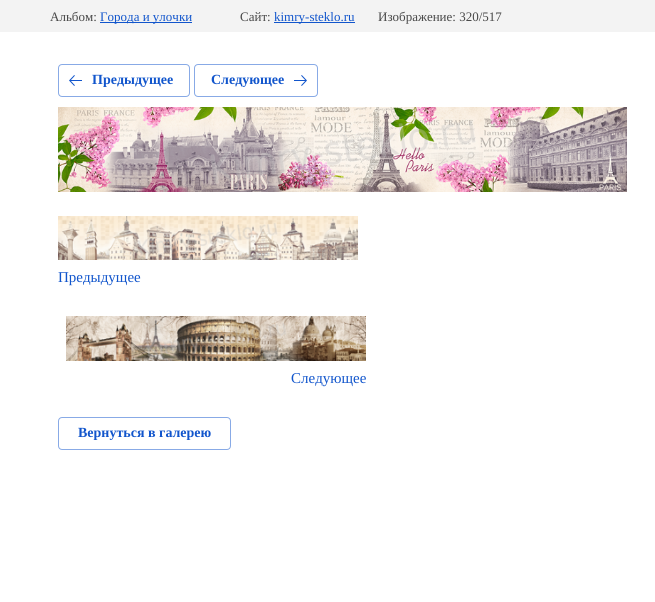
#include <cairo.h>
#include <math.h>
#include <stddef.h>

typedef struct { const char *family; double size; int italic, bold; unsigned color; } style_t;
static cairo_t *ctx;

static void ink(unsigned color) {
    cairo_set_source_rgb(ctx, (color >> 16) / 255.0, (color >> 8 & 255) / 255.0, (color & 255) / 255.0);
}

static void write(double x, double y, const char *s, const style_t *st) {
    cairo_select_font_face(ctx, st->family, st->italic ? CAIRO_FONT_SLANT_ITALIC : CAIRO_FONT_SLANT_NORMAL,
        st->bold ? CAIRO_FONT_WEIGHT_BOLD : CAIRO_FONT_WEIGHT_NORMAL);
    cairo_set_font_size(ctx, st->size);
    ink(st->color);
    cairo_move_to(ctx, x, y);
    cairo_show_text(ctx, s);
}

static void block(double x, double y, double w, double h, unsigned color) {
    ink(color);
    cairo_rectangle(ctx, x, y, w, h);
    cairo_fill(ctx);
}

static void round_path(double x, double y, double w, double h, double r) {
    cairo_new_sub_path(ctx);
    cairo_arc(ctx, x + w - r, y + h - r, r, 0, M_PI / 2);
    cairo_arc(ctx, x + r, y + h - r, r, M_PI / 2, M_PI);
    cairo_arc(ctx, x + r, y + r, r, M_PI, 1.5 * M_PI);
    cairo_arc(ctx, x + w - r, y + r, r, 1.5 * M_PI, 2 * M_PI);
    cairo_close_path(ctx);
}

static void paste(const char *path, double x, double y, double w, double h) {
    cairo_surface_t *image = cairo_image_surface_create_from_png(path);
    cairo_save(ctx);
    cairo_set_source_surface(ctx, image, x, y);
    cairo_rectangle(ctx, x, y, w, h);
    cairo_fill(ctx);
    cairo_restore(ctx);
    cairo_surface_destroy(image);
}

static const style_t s1 = {"Liberation Serif", 13, 0, 0, 0x484848};
static const style_t s2 = {"Liberation Serif", 13, 0, 0, 0x1155cc};
static const style_t s3 = {"Liberation Serif", 14, 0, 1, 0x1155cc};
static const style_t s4 = {"Liberation Serif", 15, 0, 0, 0x1155cc};

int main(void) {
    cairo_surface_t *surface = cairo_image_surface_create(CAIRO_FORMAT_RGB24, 655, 602);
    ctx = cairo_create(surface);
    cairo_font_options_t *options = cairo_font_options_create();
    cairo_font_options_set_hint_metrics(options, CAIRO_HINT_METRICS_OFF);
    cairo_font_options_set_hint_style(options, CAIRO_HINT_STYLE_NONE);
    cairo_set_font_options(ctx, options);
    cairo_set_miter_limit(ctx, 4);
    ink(0xffffff);
    cairo_paint(ctx);
    block(0, 0, 655, 32, 0xf3f3f3);
    write(50, 21, "Альбом:", &s1);
    block(100, 22, 92, 1, 0x1155cc);
    write(100, 21, "Города и улочки", &s2);
    write(240, 21, "Сайт:", &s1);
    block(274, 22, 81, 1, 0x1155cc);
    write(274, 21, "kimry-steklo.ru", &s2);
    write(378, 21, "Изображение: 320/517", &s1);
    round_path(58.5, 64.5, 131, 32, 3.5);
    ink(0x88aae6);
    cairo_set_line_width(ctx, 1);
    cairo_stroke(ctx);
    paste("pic1.png", 69, 75, 13, 11);
    write(92, 84, "Предыдущее", &s3);
    round_path(194.5, 64.5, 123, 32, 3.5);
    ink(0x88aae6);
    cairo_stroke(ctx);
    write(211, 84, "Следующее", &s3);
    paste("pic2.png", 294, 75, 13, 11);
    paste("pic3.png", 58, 107, 569, 85);
    paste("pic4.png", 58, 216, 300, 44);
    write(58, 282, "Предыдущее", &s4);
    paste("pic5.png", 66, 316, 300, 45);
    write(291, 383, "Следующее", &s4);
    round_path(58.5, 417.5, 172, 32, 3.5);
    ink(0x88aae6);
    cairo_stroke(ctx);
    write(78, 437, "Вернуться в галерею", &s3);
    cairo_surface_write_to_png(surface, "screenshot.png");
    cairo_font_options_destroy(options);
    cairo_destroy(ctx);
    cairo_surface_destroy(surface);
    return 0;
}
